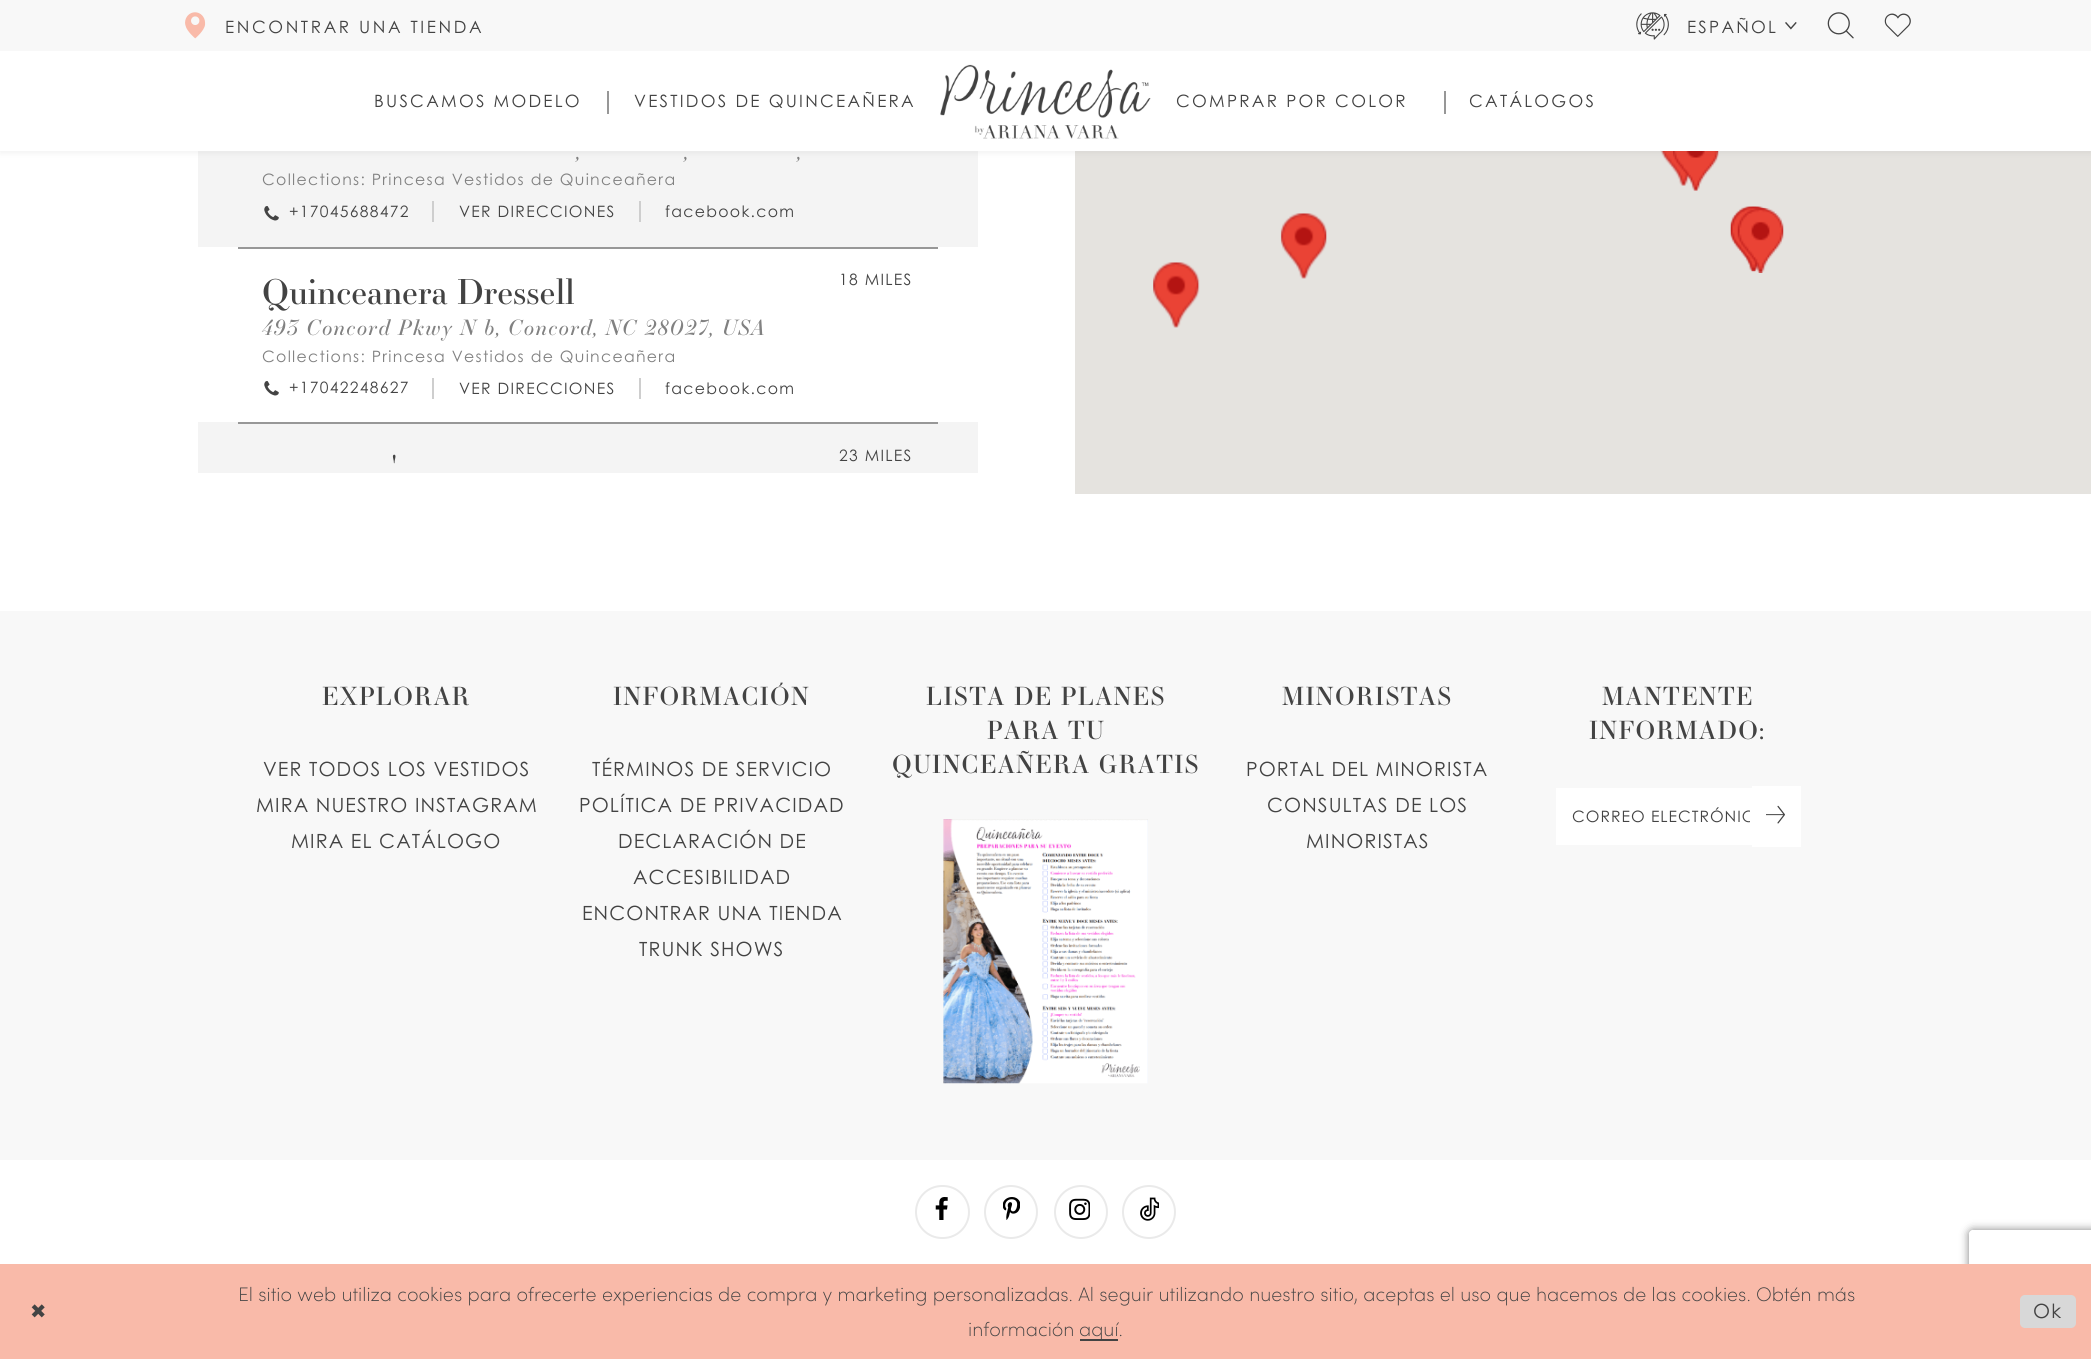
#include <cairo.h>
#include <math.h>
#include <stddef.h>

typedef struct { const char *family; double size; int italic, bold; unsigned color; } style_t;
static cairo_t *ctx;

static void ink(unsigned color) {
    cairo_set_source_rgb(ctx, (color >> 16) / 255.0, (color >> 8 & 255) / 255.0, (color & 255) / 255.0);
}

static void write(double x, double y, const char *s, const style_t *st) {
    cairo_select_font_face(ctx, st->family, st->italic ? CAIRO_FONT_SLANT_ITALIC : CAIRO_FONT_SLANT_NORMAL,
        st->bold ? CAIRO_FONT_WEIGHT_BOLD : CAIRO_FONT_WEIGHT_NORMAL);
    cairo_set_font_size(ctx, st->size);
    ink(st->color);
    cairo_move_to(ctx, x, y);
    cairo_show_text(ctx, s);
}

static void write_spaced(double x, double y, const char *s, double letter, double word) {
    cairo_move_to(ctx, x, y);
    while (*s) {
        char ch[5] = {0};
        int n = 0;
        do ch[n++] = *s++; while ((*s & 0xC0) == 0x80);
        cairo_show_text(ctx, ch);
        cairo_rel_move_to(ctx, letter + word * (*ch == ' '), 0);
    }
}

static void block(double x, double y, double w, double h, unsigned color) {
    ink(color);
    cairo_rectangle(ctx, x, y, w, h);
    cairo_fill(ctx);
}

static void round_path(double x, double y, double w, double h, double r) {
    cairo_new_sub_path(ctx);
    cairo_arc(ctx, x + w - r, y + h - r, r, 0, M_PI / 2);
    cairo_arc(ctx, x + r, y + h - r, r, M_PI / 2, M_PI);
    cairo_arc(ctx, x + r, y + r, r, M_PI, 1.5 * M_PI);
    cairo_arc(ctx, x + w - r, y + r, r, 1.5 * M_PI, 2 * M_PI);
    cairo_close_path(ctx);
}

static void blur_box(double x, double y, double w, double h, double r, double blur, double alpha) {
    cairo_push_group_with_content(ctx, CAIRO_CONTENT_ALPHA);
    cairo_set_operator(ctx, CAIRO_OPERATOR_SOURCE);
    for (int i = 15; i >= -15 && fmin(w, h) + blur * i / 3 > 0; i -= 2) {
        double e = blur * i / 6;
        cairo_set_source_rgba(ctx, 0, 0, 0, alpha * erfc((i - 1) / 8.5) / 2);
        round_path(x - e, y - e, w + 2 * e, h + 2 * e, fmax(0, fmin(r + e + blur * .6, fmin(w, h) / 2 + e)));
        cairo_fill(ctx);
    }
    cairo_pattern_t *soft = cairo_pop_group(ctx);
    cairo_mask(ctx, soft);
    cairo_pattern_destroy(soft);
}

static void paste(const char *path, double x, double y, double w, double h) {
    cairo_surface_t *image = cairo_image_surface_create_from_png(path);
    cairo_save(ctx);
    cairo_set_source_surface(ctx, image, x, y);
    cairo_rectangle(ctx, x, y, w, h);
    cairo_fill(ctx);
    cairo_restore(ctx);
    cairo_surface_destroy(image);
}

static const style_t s1 = {"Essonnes", 34, 0, 0, 0x434343};
static const style_t s2 = {"Sofia ExtraLight", 19.6, 0, 0, 0x434343};

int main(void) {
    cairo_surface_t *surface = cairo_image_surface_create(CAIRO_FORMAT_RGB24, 2091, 1359);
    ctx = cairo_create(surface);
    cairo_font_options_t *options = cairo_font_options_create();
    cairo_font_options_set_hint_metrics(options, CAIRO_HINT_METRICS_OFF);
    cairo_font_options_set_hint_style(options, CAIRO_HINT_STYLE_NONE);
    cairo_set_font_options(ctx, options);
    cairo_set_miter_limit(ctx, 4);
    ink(0xffffff);
    cairo_paint(ctx);
    block(198, 151, 780, 96, 0xf4f4f4);
    block(1075, 151, 1016, 343, 0xe5e3df);
    paste("pic9.png", 1660, 151, 30, 35);
    paste("pic10.png", 1673, 151, 46, 40);
    ink(0x4c4c4b);
    blur_box(0, 2, 2091, 150, 0, 3.5, 0.1);
    block(0, 51, 2091, 100, 0xffffff);
    block(0, 0, 2091, 51, 0xf8f8f8);
    paste("pic1.png", 185, 12, 21, 27);
    cairo_select_font_face(ctx, "Century Gothic", CAIRO_FONT_SLANT_NORMAL, CAIRO_FONT_WEIGHT_NORMAL);
    cairo_set_font_size(ctx, 17);
    ink(0x434343);
    write_spaced(225, 33, "ENCONTRAR UNA TIENDA", 2.6, 0);
    paste("pic2.png", 1636, 12, 33, 28);
    write_spaced(1687, 33, "ESPAÑOL", 2.25, 0);
    paste("pic3.png", 1785, 22, 12, 8);
    paste("pic4.png", 1827, 12, 27, 27);
    paste("pic5.png", 1884, 13, 27, 24);
    paste("pic6.png", 940, 64, 211, 75);
    write_spaced(374, 107, "BUSCAMOS MODELO", 2.25, 0);
    block(607, 91, 2, 23, 0x979797);
    ink(0x434343);
    write_spaced(634, 107, "VESTIDOS DE QUINCEAÑERA", 2.25, 0);
    write_spaced(1176, 107, "COMPRAR POR COLOR", 2.25, 0);
    block(1444, 91, 2, 23, 0x979797);
    ink(0x434343);
    write_spaced(1469, 107, "CATÁLOGOS", 2.25, 0);
    cairo_select_font_face(ctx, "Essonnes", CAIRO_FONT_SLANT_ITALIC, CAIRO_FONT_WEIGHT_NORMAL);
    cairo_set_font_size(ctx, 20.9);
    ink(0x818181);
    write_spaced(576, 159, ",", 1.3, 0);
    write_spaced(684, 159, ",", 1.3, 0);
    write_spaced(797, 159, ",", 1.3, 0);
    cairo_select_font_face(ctx, "Century Gothic", CAIRO_FONT_SLANT_NORMAL, CAIRO_FONT_WEIGHT_NORMAL);
    cairo_set_font_size(ctx, 15.7);
    write_spaced(262, 185, "Collections: Princesa Vestidos de Quinceañera", 1.3, 0);
    paste("pic7.png", 264, 206, 15, 15);
    ink(0x434343);
    write_spaced(289, 217, "+17045688472", 1.3, 0);
    block(432, 201, 2, 21, 0xcecece);
    ink(0x434343);
    write_spaced(459, 217, "VER DIRECCIONES", 1.3, 0);
    block(639, 201, 2, 21, 0xcecece);
    ink(0x434343);
    write_spaced(665, 217, "facebook.com", 1.3, 0);
    block(238, 247, 700, 2, 0x979797);
    write(262, 304, "Quinceanera Dressell", &s1);
    cairo_select_font_face(ctx, "Century Gothic", CAIRO_FONT_SLANT_NORMAL, CAIRO_FONT_WEIGHT_NORMAL);
    cairo_set_font_size(ctx, 15.7);
    write_spaced(839, 285, "18 MILES", 1.3, 0);
    cairo_select_font_face(ctx, "Essonnes", CAIRO_FONT_SLANT_ITALIC, CAIRO_FONT_WEIGHT_NORMAL);
    cairo_set_font_size(ctx, 20.9);
    ink(0x818181);
    write_spaced(262, 335, "493 Concord Pkwy N b, Concord, NC 28027, USA", 1.3, 0);
    cairo_select_font_face(ctx, "Century Gothic", CAIRO_FONT_SLANT_NORMAL, CAIRO_FONT_WEIGHT_NORMAL);
    cairo_set_font_size(ctx, 15.7);
    write_spaced(262, 362, "Collections: Princesa Vestidos de Quinceañera", 1.3, 0);
    paste("pic8.png", 264, 381, 15, 15);
    ink(0x434343);
    write_spaced(289, 393, "+17042248627", 1.3, 0);
    block(432, 378, 2, 21, 0xcecece);
    ink(0x434343);
    write_spaced(459, 394, "VER DIRECCIONES", 1.3, 0);
    block(639, 378, 2, 21, 0xcecece);
    ink(0x434343);
    write_spaced(665, 394, "facebook.com", 1.3, 0);
    block(198, 422, 780, 51, 0xf4f4f4);
    block(238, 422, 700, 2, 0x979797);
    write(391, 480, "'", &s1);
    cairo_select_font_face(ctx, "Century Gothic", CAIRO_FONT_SLANT_NORMAL, CAIRO_FONT_WEIGHT_NORMAL);
    cairo_set_font_size(ctx, 15.7);
    write_spaced(839, 461, "23 MILES", 1.3, 0);
    paste("pic11.png", 1730, 206, 42, 66);
    paste("pic12.png", 1730, 206, 41, 66);
    paste("pic13.png", 1280, 213, 47, 66);
    paste("pic14.png", 1737, 208, 47, 65);
    paste("pic15.png", 1153, 262, 47, 66);
    block(0, 611, 2091, 549, 0xf8f8f8);
    cairo_select_font_face(ctx, "Essonnes", CAIRO_FONT_SLANT_NORMAL, CAIRO_FONT_WEIGHT_NORMAL);
    cairo_set_font_size(ctx, 24.75);
    ink(0x434343);
    write_spaced(322, 705, "EXPLORAR", 1.4, 0);
    cairo_select_font_face(ctx, "Century Gothic", CAIRO_FONT_SLANT_NORMAL, CAIRO_FONT_WEIGHT_NORMAL);
    cairo_set_font_size(ctx, 19.6);
    write_spaced(263, 776, "VER TODOS LOS VESTIDOS", 1.1, 0);
    write_spaced(256, 812, "MIRA NUESTRO INSTAGRAM", 1.1, 0);
    write_spaced(291, 848, "MIRA EL CATÁLOGO", 1.1, 0);
    cairo_select_font_face(ctx, "Essonnes", CAIRO_FONT_SLANT_NORMAL, CAIRO_FONT_WEIGHT_NORMAL);
    cairo_set_font_size(ctx, 24.75);
    write_spaced(613, 705, "INFORMACIÓN", 1.4, 0);
    cairo_select_font_face(ctx, "Century Gothic", CAIRO_FONT_SLANT_NORMAL, CAIRO_FONT_WEIGHT_NORMAL);
    cairo_set_font_size(ctx, 19.6);
    write_spaced(592, 776, "TÉRMINOS DE SERVICIO", 1.1, 0);
    write_spaced(579, 812, "POLÍTICA DE PRIVACIDAD", 1.1, 0);
    write_spaced(618, 848, "DECLARACIÓN DE", 1.1, 0);
    write_spaced(633, 884, "ACCESIBILIDAD", 1.1, 0);
    write_spaced(582, 920, "ENCONTRAR UNA TIENDA", 1.1, 0);
    write_spaced(639, 956, "TRUNK SHOWS", 1.1, 0);
    cairo_select_font_face(ctx, "Essonnes", CAIRO_FONT_SLANT_NORMAL, CAIRO_FONT_WEIGHT_NORMAL);
    cairo_set_font_size(ctx, 24.75);
    write_spaced(926, 705, "LISTA DE PLANES", 1.4, 0);
    write_spaced(987, 739, "PARA TU", 1.4, 0);
    write_spaced(892, 773, "QUINCEAÑERA GRATIS", 1.4, 0);
    paste("pic16.png", 943, 819, 205, 265);
    write_spaced(1282, 705, "MINORISTAS", 1.4, 0);
    cairo_select_font_face(ctx, "Century Gothic", CAIRO_FONT_SLANT_NORMAL, CAIRO_FONT_WEIGHT_NORMAL);
    cairo_set_font_size(ctx, 19.6);
    write_spaced(1246, 776, "PORTAL DEL MINORISTA", 1.1, 0);
    write_spaced(1267, 812, "CONSULTAS DE LOS", 1.1, 0);
    write_spaced(1306, 848, "MINORISTAS", 1.1, 0);
    cairo_select_font_face(ctx, "Essonnes", CAIRO_FONT_SLANT_NORMAL, CAIRO_FONT_WEIGHT_NORMAL);
    cairo_set_font_size(ctx, 24.75);
    write_spaced(1602, 705, "MANTENTE", 1.4, 0);
    write_spaced(1589, 739, "INFORMADO:", 1.4, 0);
    block(1556, 788, 196, 57, 0xffffff);
    cairo_save(ctx);
    cairo_rectangle(ctx, 1572, 807, 178, 19);
    cairo_clip(ctx);
    cairo_select_font_face(ctx, "Century Gothic", CAIRO_FONT_SLANT_NORMAL, CAIRO_FONT_WEIGHT_NORMAL);
    cairo_set_font_size(ctx, 15.7);
    ink(0x434343);
    write_spaced(1572, 822, "CORREO ELECTRÓNIC", 1, 0);
    cairo_restore(ctx);
    block(1752, 786, 49, 61, 0xffffff);
    paste("pic17.png", 1766, 805, 19, 19);
    round_path(916, 1186, 53, 52, 26);
    ink(0xeaeaea);
    cairo_stroke(ctx);
    paste("pic18.png", 935, 1197, 13, 23);
    cairo_arc(ctx, 1011, 1212, 26, 0, 2 * M_PI);
    cairo_stroke(ctx);
    paste("pic19.png", 1003, 1197, 17, 23);
    cairo_arc(ctx, 1081, 1212, 26, 0, 2 * M_PI);
    cairo_stroke(ctx);
    paste("pic20.png", 1069, 1198, 21, 22);
    cairo_arc(ctx, 1149, 1212, 26, 0, 2 * M_PI);
    cairo_stroke(ctx);
    paste("pic21.png", 1140, 1197, 19, 24);
    cairo_save(ctx);
    cairo_set_fill_rule(ctx, CAIRO_FILL_RULE_EVEN_ODD);
    cairo_new_path(ctx);
    cairo_move_to(ctx, 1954, 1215);
    cairo_line_to(ctx, 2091, 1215);
    cairo_line_to(ctx, 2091, 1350);
    cairo_line_to(ctx, 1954, 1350);
    cairo_close_path(ctx);
    cairo_move_to(ctx, 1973, 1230);
    cairo_line_to(ctx, 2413, 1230);
    cairo_curve_to(ctx, 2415, 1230, 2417, 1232, 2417, 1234);
    cairo_line_to(ctx, 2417, 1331);
    cairo_curve_to(ctx, 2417, 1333, 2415, 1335, 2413, 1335);
    cairo_line_to(ctx, 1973, 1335);
    cairo_curve_to(ctx, 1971, 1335, 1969, 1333, 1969, 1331);
    cairo_line_to(ctx, 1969, 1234);
    cairo_curve_to(ctx, 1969, 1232, 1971, 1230, 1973, 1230);
    cairo_close_path(ctx);
    cairo_clip(ctx);
    ink(0x808080);
    blur_box(1969, 1230, 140, 105, 4, 4.5, 1);
    cairo_restore(ctx);
    block(0, 1264, 2091, 95, 0xf9baa9);
    cairo_select_font_face(ctx, "DejaVu Sans", CAIRO_FONT_SLANT_NORMAL, CAIRO_FONT_WEIGHT_NORMAL);
    cairo_set_font_size(ctx, 19.6);
    ink(0x434343);
    write_spaced(30, 1318, "✖", 1.3, 0);
    write(238, 1301, "El sitio web utiliza cookies para ofrecerte experiencias de compra y marketing personalizadas. Al seguir utilizando nuestro sitio, aceptas el uso que hacemos de las cookies. Obtén más", &s2);
    write(968, 1336, "información", &s2);
    block(1080, 1339, 38, 2, 0x434343);
    write(1079, 1336, "aquí.", &s2);
    ink(0xd8d8d8);
    round_path(2020, 1295, 56, 33, 5);
    cairo_fill(ctx);
    cairo_select_font_face(ctx, "Century Gothic", CAIRO_FONT_SLANT_NORMAL, CAIRO_FONT_WEIGHT_NORMAL);
    ink(0x434343);
    write_spaced(2033, 1318, "Ok", 1.3, 0);
    cairo_surface_write_to_png(surface, "screenshot.png");
    cairo_font_options_destroy(options);
    cairo_destroy(ctx);
    cairo_surface_destroy(surface);
    return 0;
}
